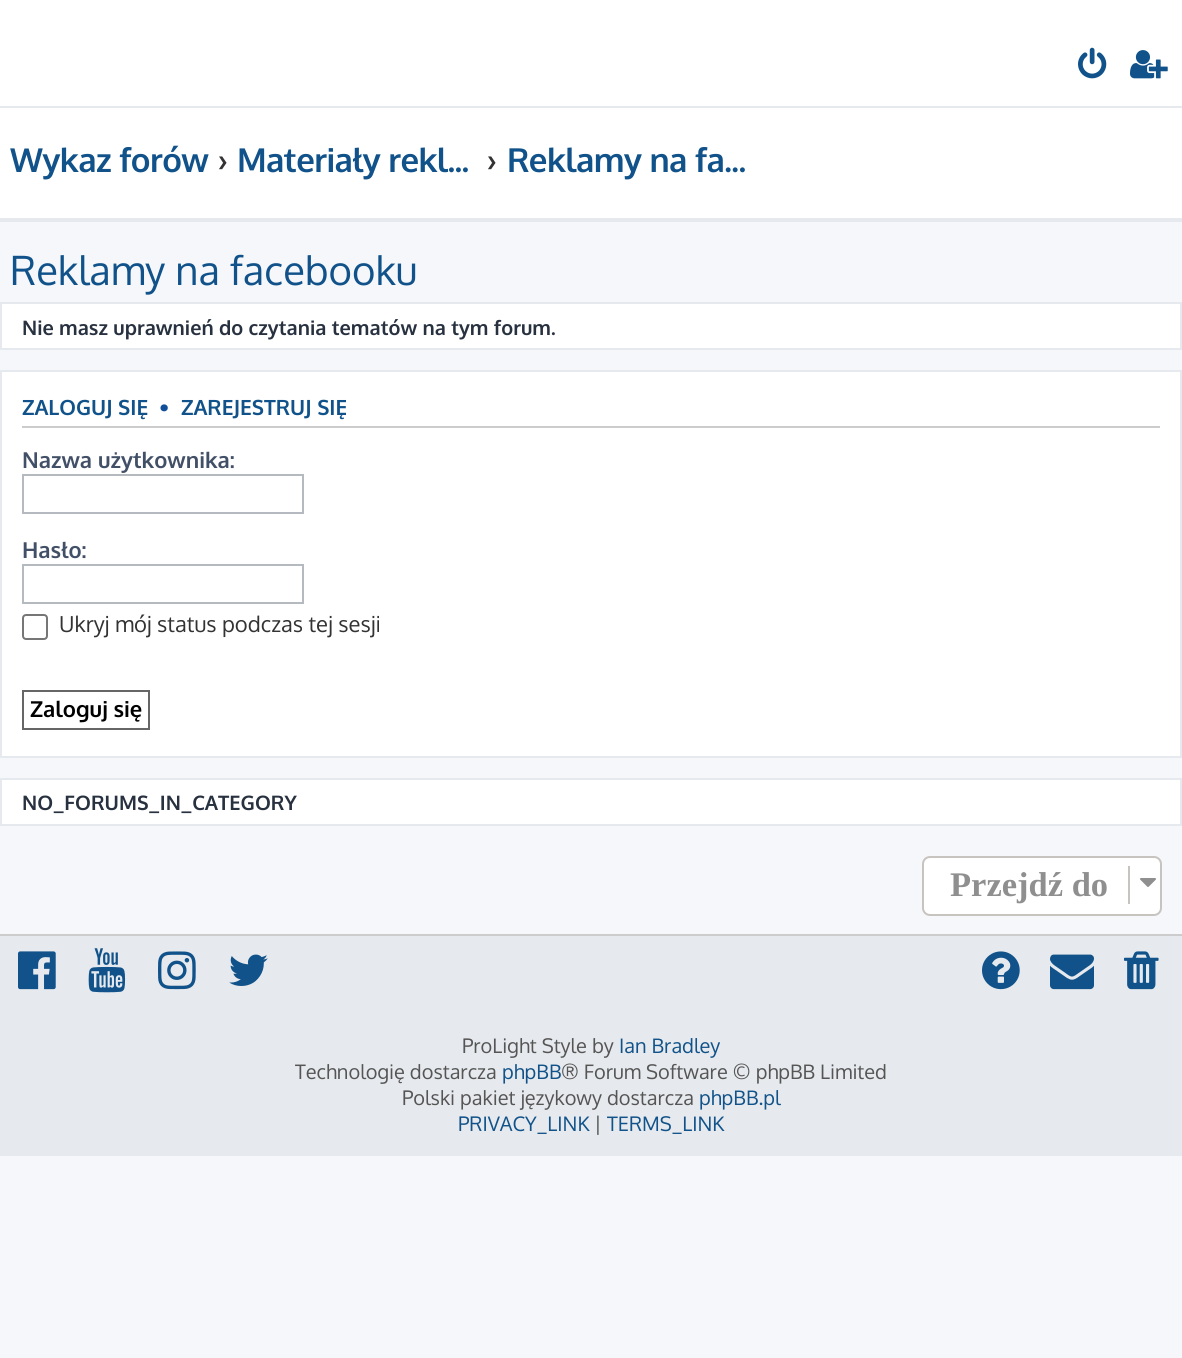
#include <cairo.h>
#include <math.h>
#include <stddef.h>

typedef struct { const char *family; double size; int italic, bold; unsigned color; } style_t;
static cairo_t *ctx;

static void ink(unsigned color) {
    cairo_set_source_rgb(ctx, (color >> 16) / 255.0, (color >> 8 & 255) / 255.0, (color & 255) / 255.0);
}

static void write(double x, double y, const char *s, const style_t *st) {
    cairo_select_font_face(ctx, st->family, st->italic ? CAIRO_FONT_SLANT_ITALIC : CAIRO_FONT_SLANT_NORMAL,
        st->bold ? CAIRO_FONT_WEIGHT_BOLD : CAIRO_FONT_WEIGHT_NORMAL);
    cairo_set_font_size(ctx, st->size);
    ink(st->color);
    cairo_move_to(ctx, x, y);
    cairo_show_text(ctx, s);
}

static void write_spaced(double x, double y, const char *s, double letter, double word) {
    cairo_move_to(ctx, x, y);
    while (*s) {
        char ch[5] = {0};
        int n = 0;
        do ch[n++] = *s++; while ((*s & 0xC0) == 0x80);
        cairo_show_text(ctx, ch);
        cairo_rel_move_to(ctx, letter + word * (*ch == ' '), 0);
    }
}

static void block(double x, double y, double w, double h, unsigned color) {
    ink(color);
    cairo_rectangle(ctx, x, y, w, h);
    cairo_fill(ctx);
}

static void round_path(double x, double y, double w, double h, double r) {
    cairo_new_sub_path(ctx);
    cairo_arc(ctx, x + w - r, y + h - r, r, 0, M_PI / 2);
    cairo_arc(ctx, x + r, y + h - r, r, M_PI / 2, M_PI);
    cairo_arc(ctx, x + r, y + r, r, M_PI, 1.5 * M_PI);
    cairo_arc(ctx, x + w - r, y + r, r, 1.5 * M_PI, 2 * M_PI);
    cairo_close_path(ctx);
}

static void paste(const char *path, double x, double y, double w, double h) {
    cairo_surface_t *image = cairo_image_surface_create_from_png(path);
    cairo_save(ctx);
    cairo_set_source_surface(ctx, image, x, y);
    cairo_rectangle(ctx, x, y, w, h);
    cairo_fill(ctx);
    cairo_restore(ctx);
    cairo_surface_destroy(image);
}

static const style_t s1 = {"Oxygen", 33, 0, 1, 0x333333};
static const style_t s2 = {"Oxygen", 40, 0, 0, 0x105289};
static const style_t s3 = {"Oxygen", 20, 0, 1, 0x28313f};
static const style_t s4 = {"Oxygen", 21, 0, 1, 0x105289};
static const style_t s5 = {"Oxygen", 21, 0, 1, 0x115098};
static const style_t s6 = {"Oxygen", 22, 0, 1, 0x425067};
static const style_t s7 = {"Oxygen", 22, 0, 0, 0x333333};
static const style_t s8 = {"Oxygen", 22, 0, 1, 0x000000};
static const style_t s9 = {"Liberation Serif", 34.5, 0, 1, 0x8f8f8f};
static const style_t s10 = {"Oxygen", 20, 0, 0, 0x555555};
static const style_t s11 = {"Oxygen", 20, 0, 0, 0x105289};

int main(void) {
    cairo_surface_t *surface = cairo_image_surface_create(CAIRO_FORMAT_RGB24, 1182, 1358);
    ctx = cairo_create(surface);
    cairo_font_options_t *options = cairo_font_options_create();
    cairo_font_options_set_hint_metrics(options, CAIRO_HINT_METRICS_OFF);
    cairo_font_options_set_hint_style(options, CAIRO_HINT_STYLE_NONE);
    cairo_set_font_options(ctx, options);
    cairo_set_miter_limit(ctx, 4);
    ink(0xf5f7fa);
    cairo_paint(ctx);
    block(0, 0, 1182, 106, 0xffffff);
    block(0, 106, 1182, 2, 0xe6e9ed);
    paste("pic1.png", 1078, 47, 29, 32);
    paste("pic2.png", 1130, 50, 38, 29);
    block(0, 108, 1182, 110, 0xffffff);
    block(0, 218, 1182, 4, 0xe6e9ed);
    cairo_select_font_face(ctx, "Oxygen", CAIRO_FONT_SLANT_NORMAL, CAIRO_FONT_WEIGHT_BOLD);
    cairo_set_font_size(ctx, 33);
    ink(0x105289);
    write_spaced(10, 172, "Wykaz forów", -0.6, 0);
    write(218, 172, "›", &s1);
    ink(0x105289);
    write_spaced(237, 172, "Materiały rekl...", -0.6, 0);
    write(487, 172, "›", &s1);
    ink(0x105289);
    write_spaced(507, 172, "Reklamy na fa...", -0.6, 0);
    write(10, 285, "Reklamy na facebooku", &s2);
    ink(0xffffff);
    cairo_rectangle(ctx, 1, 303, 1180, 46);
    cairo_fill_preserve(ctx);
    ink(0xe6e9ed);
    cairo_stroke(ctx);
    write(22, 335, "Nie masz uprawnień do czytania tematów na tym forum.", &s3);
    ink(0xffffff);
    cairo_rectangle(ctx, 1, 371, 1180, 386);
    cairo_fill_preserve(ctx);
    ink(0xe6e9ed);
    cairo_stroke(ctx);
    block(22, 426, 1138, 2, 0xcccccc);
    write(22, 415, "ZALOGUJ SIĘ", &s4);
    write(159, 415, "•", &s5);
    write(181, 415, "ZAREJESTRUJ SIĘ", &s4);
    write(22, 468, "Nazwa użytkownika:", &s6);
    cairo_rectangle(ctx, 23, 475, 280, 38);
    ink(0xb4bac0);
    cairo_stroke(ctx);
    write(22, 558, "Hasło:", &s6);
    cairo_rectangle(ctx, 23, 565, 280, 38);
    ink(0xb4bac0);
    cairo_stroke(ctx);
    round_path(23, 615, 24, 24, 3);
    ink(0x767676);
    cairo_stroke(ctx);
    write(59, 632, "Ukryj mój status podczas tej sesji", &s7);
    cairo_rectangle(ctx, 23, 691, 126, 38);
    ink(0x666666);
    cairo_stroke(ctx);
    write(30, 717, "Zaloguj się", &s8);
    ink(0xffffff);
    cairo_rectangle(ctx, 1, 779, 1180, 46);
    cairo_fill_preserve(ctx);
    ink(0xe6e9ed);
    cairo_stroke(ctx);
    write(22, 810, "NO_FORUMS_IN_CATEGORY", &s3);
    ink(0xffffff);
    round_path(923, 857, 238, 58, 7);
    cairo_fill_preserve(ctx);
    ink(0xc7c3bf);
    cairo_stroke(ctx);
    write(950, 896, "Przejdź do", &s9);
    block(1128, 866, 2, 38, 0xc7c3bf);
    paste("pic3.png", 1140, 878, 16, 9);
    block(0, 936, 1182, 220, 0xe6e9ed);
    block(0, 934, 1182, 2, 0xcccccc);
    paste("pic4.png", 18, 951, 38, 39);
    paste("pic5.png", 88, 948, 38, 45);
    paste("pic6.png", 158, 951, 38, 39);
    paste("pic7.png", 229, 954, 39, 32);
    paste("pic8.png", 982, 951, 38, 39);
    paste("pic9.png", 1050, 954, 44, 36);
    paste("pic10.png", 1124, 951, 35, 39);
    write(462, 1053, "ProLight Style by", &s10);
    write(619, 1053, "Ian Bradley", &s11);
    write(295, 1079, "Technologię dostarcza", &s10);
    write(502, 1079, "phpBB", &s11);
    write(561, 1079, "® Forum Software © phpBB Limited", &s10);
    write(402, 1105, "Polski pakiet językowy dostarcza", &s10);
    write(699, 1105, "phpBB.pl", &s11);
    write(458, 1131, "PRIVACY_LINK", &s11);
    write(594, 1131, "|", &s10);
    write(607, 1131, "TERMS_LINK", &s11);
    cairo_surface_write_to_png(surface, "screenshot.png");
    cairo_font_options_destroy(options);
    cairo_destroy(ctx);
    cairo_surface_destroy(surface);
    return 0;
}
